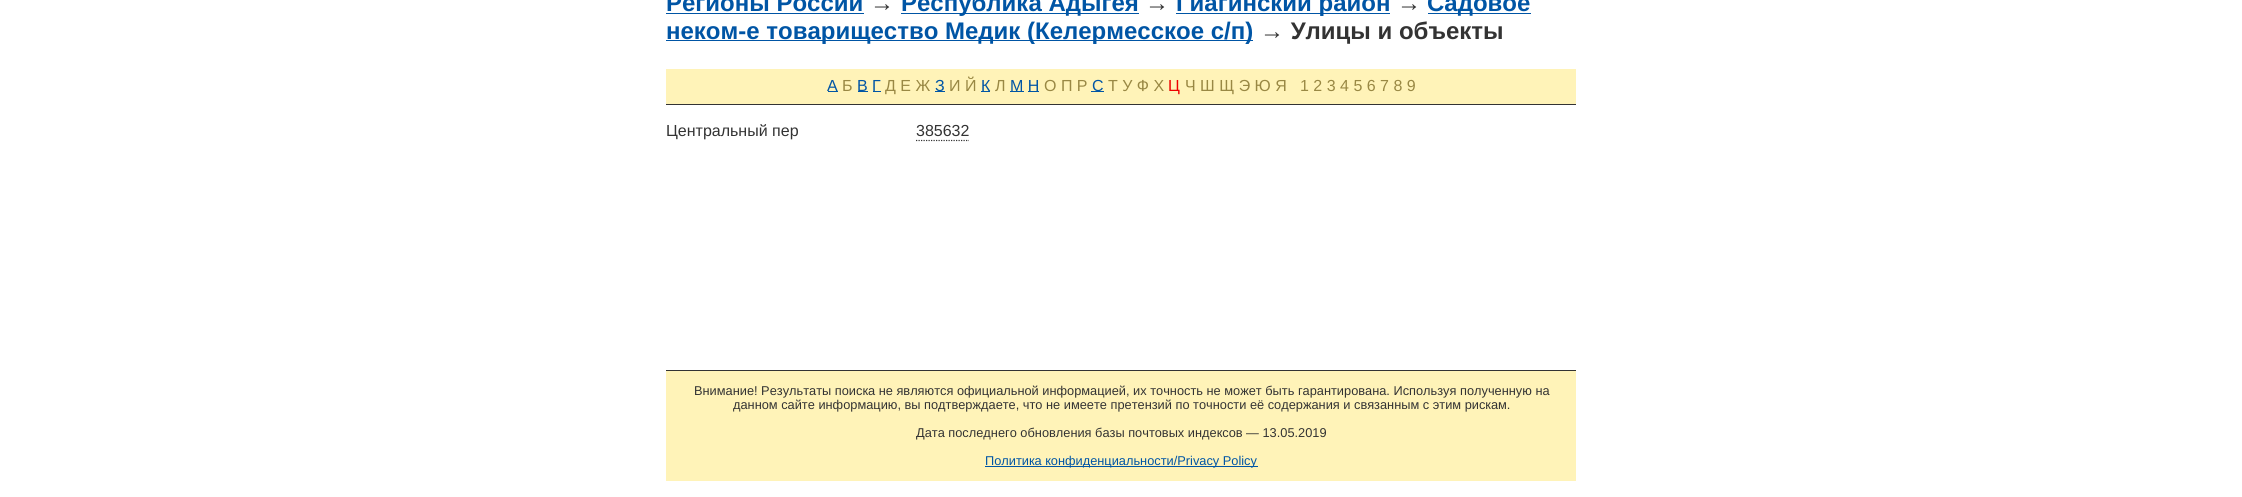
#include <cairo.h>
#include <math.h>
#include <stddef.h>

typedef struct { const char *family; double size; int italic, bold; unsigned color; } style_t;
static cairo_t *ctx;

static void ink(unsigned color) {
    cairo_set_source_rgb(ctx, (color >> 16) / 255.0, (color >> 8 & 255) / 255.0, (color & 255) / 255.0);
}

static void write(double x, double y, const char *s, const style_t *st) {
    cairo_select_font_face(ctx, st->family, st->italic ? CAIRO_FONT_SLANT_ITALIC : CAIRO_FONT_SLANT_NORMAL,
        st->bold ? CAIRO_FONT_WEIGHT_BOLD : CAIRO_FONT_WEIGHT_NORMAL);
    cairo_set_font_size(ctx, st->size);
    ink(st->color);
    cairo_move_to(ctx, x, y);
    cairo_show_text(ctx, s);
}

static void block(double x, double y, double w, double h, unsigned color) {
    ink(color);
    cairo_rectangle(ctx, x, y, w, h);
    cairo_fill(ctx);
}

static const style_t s1 = {"Liberation Sans", 24, 0, 1, 0x0055a5};
static const style_t s2 = {"Liberation Sans", 24, 0, 1, 0x333333};
static const style_t s3 = {"Liberation Sans", 16, 0, 0, 0x0055a5};
static const style_t s4 = {"Liberation Sans", 16, 0, 0, 0x998844};
static const style_t s5 = {"Liberation Sans", 16, 0, 0, 0xee0000};
static const style_t s6 = {"Liberation Sans", 16, 0, 0, 0x333333};
static const style_t s7 = {"Liberation Sans", 12.8, 0, 0, 0x333333};
static const style_t s8 = {"Liberation Sans", 12.8, 0, 0, 0x0055a5};

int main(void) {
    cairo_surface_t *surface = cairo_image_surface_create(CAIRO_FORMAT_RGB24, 2242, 497);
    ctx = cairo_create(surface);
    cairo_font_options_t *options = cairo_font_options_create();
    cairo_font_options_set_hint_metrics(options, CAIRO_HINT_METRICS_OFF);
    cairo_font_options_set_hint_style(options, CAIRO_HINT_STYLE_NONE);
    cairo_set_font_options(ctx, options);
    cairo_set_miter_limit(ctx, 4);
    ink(0xffffff);
    cairo_paint(ctx);
    write(666, 11, "Регионы России", &s1);
    block(666, 13, 198, 1, 0x0055a5);
    write(870, 11, "→", &s2);
    block(901, 13, 238, 1, 0x0055a5);
    write(901, 11, "Республика Адыгея", &s1);
    write(1145, 11, "→", &s2);
    block(1176, 13, 214, 1, 0x0055a5);
    write(1176, 11, "Гиагинский район", &s1);
    write(1397, 11, "→", &s2);
    block(1428, 13, 103, 1, 0x0055a5);
    write(1427, 11, "Садовое", &s1);
    block(666, 40, 587, 1, 0x0055a5);
    write(666, 39, "неком-е товарищество Медик (Келермесское с/п)", &s1);
    write(1260, 39, "→ Улицы и объекты", &s2);
    block(666, 69, 910, 35, 0xfff3b8);
    write(827, 91, "А", &s3);
    block(828, 91, 10, 1, 0x0055a5);
    write(842, 91, "Б", &s4);
    write(857, 91, "В Г", &s3);
    block(858, 91, 10, 1, 0x0055a5);
    write(885, 91, "Д Е Ж", &s4);
    block(935, 91, 10, 1, 0x0055a5);
    write(935, 91, "З", &s3);
    write(949, 91, "И Й", &s4);
    write(981, 91, "К", &s3);
    block(981, 91, 9, 1, 0x0055a5);
    write(995, 91, "Л", &s4);
    write(1010, 91, "М Н", &s3);
    block(1010, 91, 14, 1, 0x0055a5);
    write(1044, 91, "О П Р", &s4);
    block(1091, 91, 13, 1, 0x0055a5);
    write(1092, 91, "С", &s3);
    write(1108, 91, "Т У Ф Х", &s4);
    write(1168, 91, "Ц", &s5);
    write(1185, 91, "Ч Ш Щ Э Ю Я", &s4);
    write(1300, 91, "1 2 3 4 5 6 7 8 9", &s4);
    block(873, 91, 8, 1, 0x0055a5);
    block(1028, 91, 11, 1, 0x0055a5);
    block(666, 104, 910, 1, 0x333333);
    write(666, 136, "Центральный пер", &s6);
    write(916, 136, "385632", &s6);
    cairo_new_path(ctx);
    cairo_move_to(ctx, 916, 140.5);
    cairo_line_to(ctx, 969, 140.5);
    cairo_set_line_width(ctx, 1.2);
    cairo_set_dash(ctx, (double[]){1.25, 1.25}, 2, 0);
    cairo_stroke(ctx);
    block(666, 370, 910, 1, 0x333333);
    block(666, 371, 910, 110, 0xfff3b8);
    write(694, 395, "Внимание! Результаты поиска не являются официальной информацией, их точность не может быть гарантирована. Используя полученную на", &s7);
    write(733, 409, "данном сайте информацию, вы подтверждаете, что не имеете претензий по точности её содержания и связанным с этим рискам.", &s7);
    write(916, 437, "Дата последнего обновления базы почтовых индексов — 13.05.2019", &s7);
    block(985, 466, 273, 1, 0x0055a5);
    write(985, 465, "Политика конфиденциальности/Privacy Policy", &s8);
    cairo_surface_write_to_png(surface, "screenshot.png");
    cairo_font_options_destroy(options);
    cairo_destroy(ctx);
    cairo_surface_destroy(surface);
    return 0;
}
